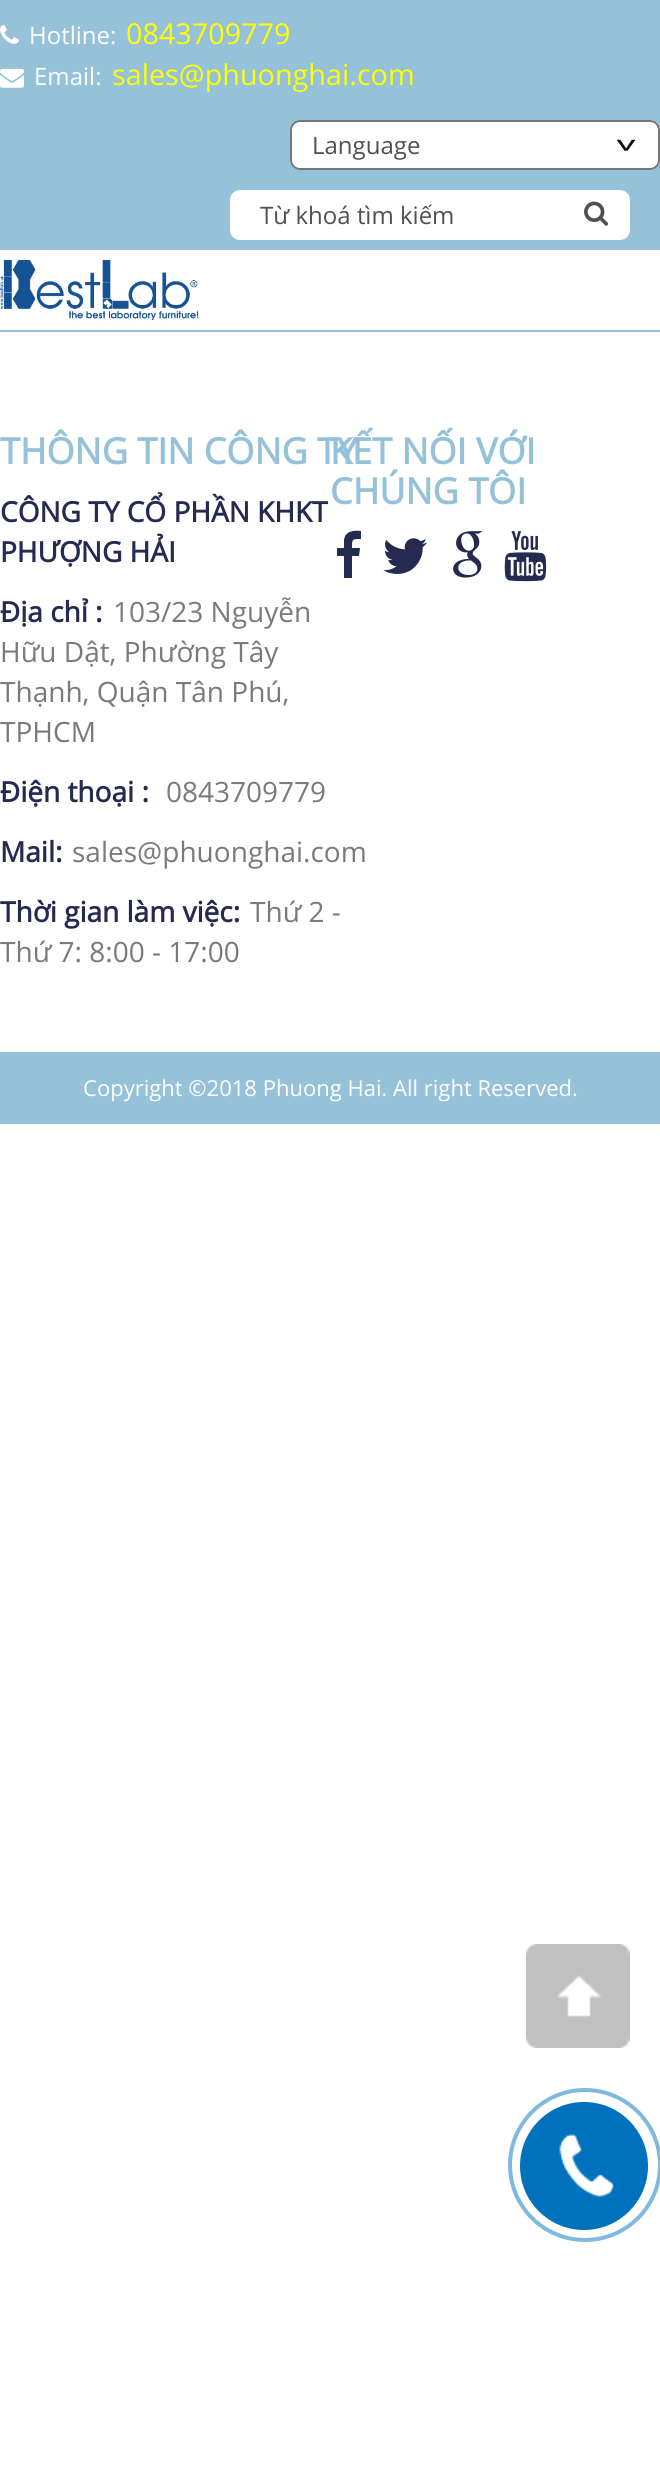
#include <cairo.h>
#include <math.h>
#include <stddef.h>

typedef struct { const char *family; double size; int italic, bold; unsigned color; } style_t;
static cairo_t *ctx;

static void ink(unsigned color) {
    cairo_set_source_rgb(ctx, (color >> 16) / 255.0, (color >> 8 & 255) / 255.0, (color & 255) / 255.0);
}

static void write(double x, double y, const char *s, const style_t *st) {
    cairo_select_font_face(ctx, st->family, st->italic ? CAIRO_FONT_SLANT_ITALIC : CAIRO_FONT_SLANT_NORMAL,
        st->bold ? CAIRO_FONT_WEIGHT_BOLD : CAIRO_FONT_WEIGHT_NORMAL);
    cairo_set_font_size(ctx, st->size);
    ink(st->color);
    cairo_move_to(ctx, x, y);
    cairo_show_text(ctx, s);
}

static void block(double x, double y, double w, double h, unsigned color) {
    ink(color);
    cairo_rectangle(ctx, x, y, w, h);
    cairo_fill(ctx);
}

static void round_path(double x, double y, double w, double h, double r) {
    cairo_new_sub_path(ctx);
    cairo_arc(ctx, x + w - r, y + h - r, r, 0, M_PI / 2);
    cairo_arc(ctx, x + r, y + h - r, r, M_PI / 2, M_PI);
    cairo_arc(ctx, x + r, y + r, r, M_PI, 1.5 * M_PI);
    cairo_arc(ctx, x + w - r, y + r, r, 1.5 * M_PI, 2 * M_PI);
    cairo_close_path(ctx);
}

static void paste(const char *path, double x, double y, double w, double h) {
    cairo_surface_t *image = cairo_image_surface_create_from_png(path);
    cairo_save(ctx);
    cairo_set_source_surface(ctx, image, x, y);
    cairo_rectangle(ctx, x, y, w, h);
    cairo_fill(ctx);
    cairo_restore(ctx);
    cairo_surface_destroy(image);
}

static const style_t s1 = {"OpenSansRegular", 24, 0, 0, 0xffffff};
static const style_t s2 = {"OpenSansRegular", 28.75, 0, 0, 0xffff00};
static const style_t s3 = {"OpenSansRegular", 24, 0, 0, 0x514f4f};
static const style_t s4 = {"OpenSansRegular", 36, 0, 1, 0x95c1d9};
static const style_t s5 = {"OpenSansRegular", 28, 0, 1, 0x242a50};
static const style_t s6 = {"OpenSansRegular", 28, 0, 0, 0x7b7979};
static const style_t s7 = {"OpenSansRegular", 22, 0, 0, 0xffffff};

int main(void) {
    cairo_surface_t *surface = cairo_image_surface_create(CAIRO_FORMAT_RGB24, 660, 2482);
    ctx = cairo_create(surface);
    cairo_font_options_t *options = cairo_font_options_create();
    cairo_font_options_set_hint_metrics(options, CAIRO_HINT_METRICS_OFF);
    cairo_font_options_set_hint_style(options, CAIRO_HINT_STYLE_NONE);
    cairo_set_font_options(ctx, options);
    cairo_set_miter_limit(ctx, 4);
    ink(0xffffff);
    cairo_paint(ctx);
    block(0, 0, 660, 250, 0x95c1d9);
    paste("pic1.png", 0, 25, 19, 19);
    write(29, 44, "Hotline:", &s1);
    write(126, 44, "0843709779", &s2);
    paste("pic2.png", 0, 68, 24, 20);
    write(34, 85, "Email:", &s1);
    write(112, 85, "sales@phuonghai.com", &s2);
    ink(0xffffff);
    round_path(290, 120, 370, 50, 10);
    cairo_fill(ctx);
    paste("pic3.png", 617, 139, 19, 12);
    round_path(291, 121, 368, 48, 9);
    ink(0x767676);
    cairo_stroke(ctx);
    write(312, 154, "Language", &s3);
    ink(0xffffff);
    round_path(230, 190, 400, 50, 10);
    cairo_fill(ctx);
    write(260, 224, "Từ khoá tìm kiếm", &s3);
    paste("pic4.png", 584, 201, 25, 25);
    block(0, 330, 660, 2, 0x95c1d9);
    paste("pic5.png", 0, 260, 198, 60);
    write(0, 464, "THÔNG TIN CÔNG TY", &s4);
    write(0, 522, "CÔNG TY CỔ PHẦN KHKT", &s5);
    write(0, 562, "PHƯỢNG HẢI", &s5);
    write(0, 622, "Địa chỉ :", &s5);
    write(113, 622, "103/23 Nguyễn", &s6);
    write(0, 662, "Hữu Dật, Phường Tây", &s6);
    write(0, 702, "Thạnh, Quận Tân Phú,", &s6);
    write(0, 742, "TPHCM", &s6);
    write(0, 802, "Điện thoại :", &s5);
    write(166, 802, "0843709779", &s6);
    write(0, 862, "Mail:", &s5);
    write(72, 862, "sales@phuonghai.com", &s6);
    write(0, 922, "Thời gian làm việc:", &s5);
    write(250, 922, "Thứ 2 -", &s6);
    write(0, 962, "Thứ 7: 8:00 - 17:00", &s6);
    write(330, 464, "KẾT NỐI VỚI", &s4);
    write(330, 504, "CHÚNG TÔI", &s4);
    ink(0x242a50);
    cairo_new_path(ctx);
    cairo_move_to(ctx, 361, 531);
    cairo_line_to(ctx, 361, 539);
    cairo_curve_to(ctx, 352, 539, 352, 539, 352, 548);
    cairo_line_to(ctx, 360, 548);
    cairo_line_to(ctx, 359, 556);
    cairo_line_to(ctx, 352, 556);
    cairo_line_to(ctx, 352, 578);
    cairo_line_to(ctx, 344, 578);
    cairo_line_to(ctx, 344, 556);
    cairo_line_to(ctx, 337, 556);
    cairo_line_to(ctx, 337, 548);
    cairo_line_to(ctx, 344, 548);
    cairo_line_to(ctx, 344, 540);
    cairo_curve_to(ctx, 345, 531, 354, 530, 361, 531);
    cairo_close_path(ctx);
    cairo_fill(ctx);
    paste("pic6.png", 383, 538, 44, 36);
    paste("pic7.png", 453, 531, 30, 47);
    paste("pic8.png", 504, 531, 43, 51);
    block(0, 1052, 660, 72, 0x95c1d9);
    write(83, 1096, "Copyright ©2018 Phuong Hai. All right Reserved.", &s7);
    paste("pic9.png", 526, 1944, 104, 104);
    cairo_arc(ctx, 585, 2165, 75, 0, 2 * M_PI);
    ink(0x80b9de);
    cairo_set_line_width(ctx, 4);
    cairo_stroke(ctx);
    ink(0x0072bd);
    cairo_arc(ctx, 584, 2166, 64, 0, 2 * M_PI);
    cairo_fill(ctx);
    paste("pic10.png", 559, 2134, 55, 63);
    cairo_surface_write_to_png(surface, "screenshot.png");
    cairo_font_options_destroy(options);
    cairo_destroy(ctx);
    cairo_surface_destroy(surface);
    return 0;
}
